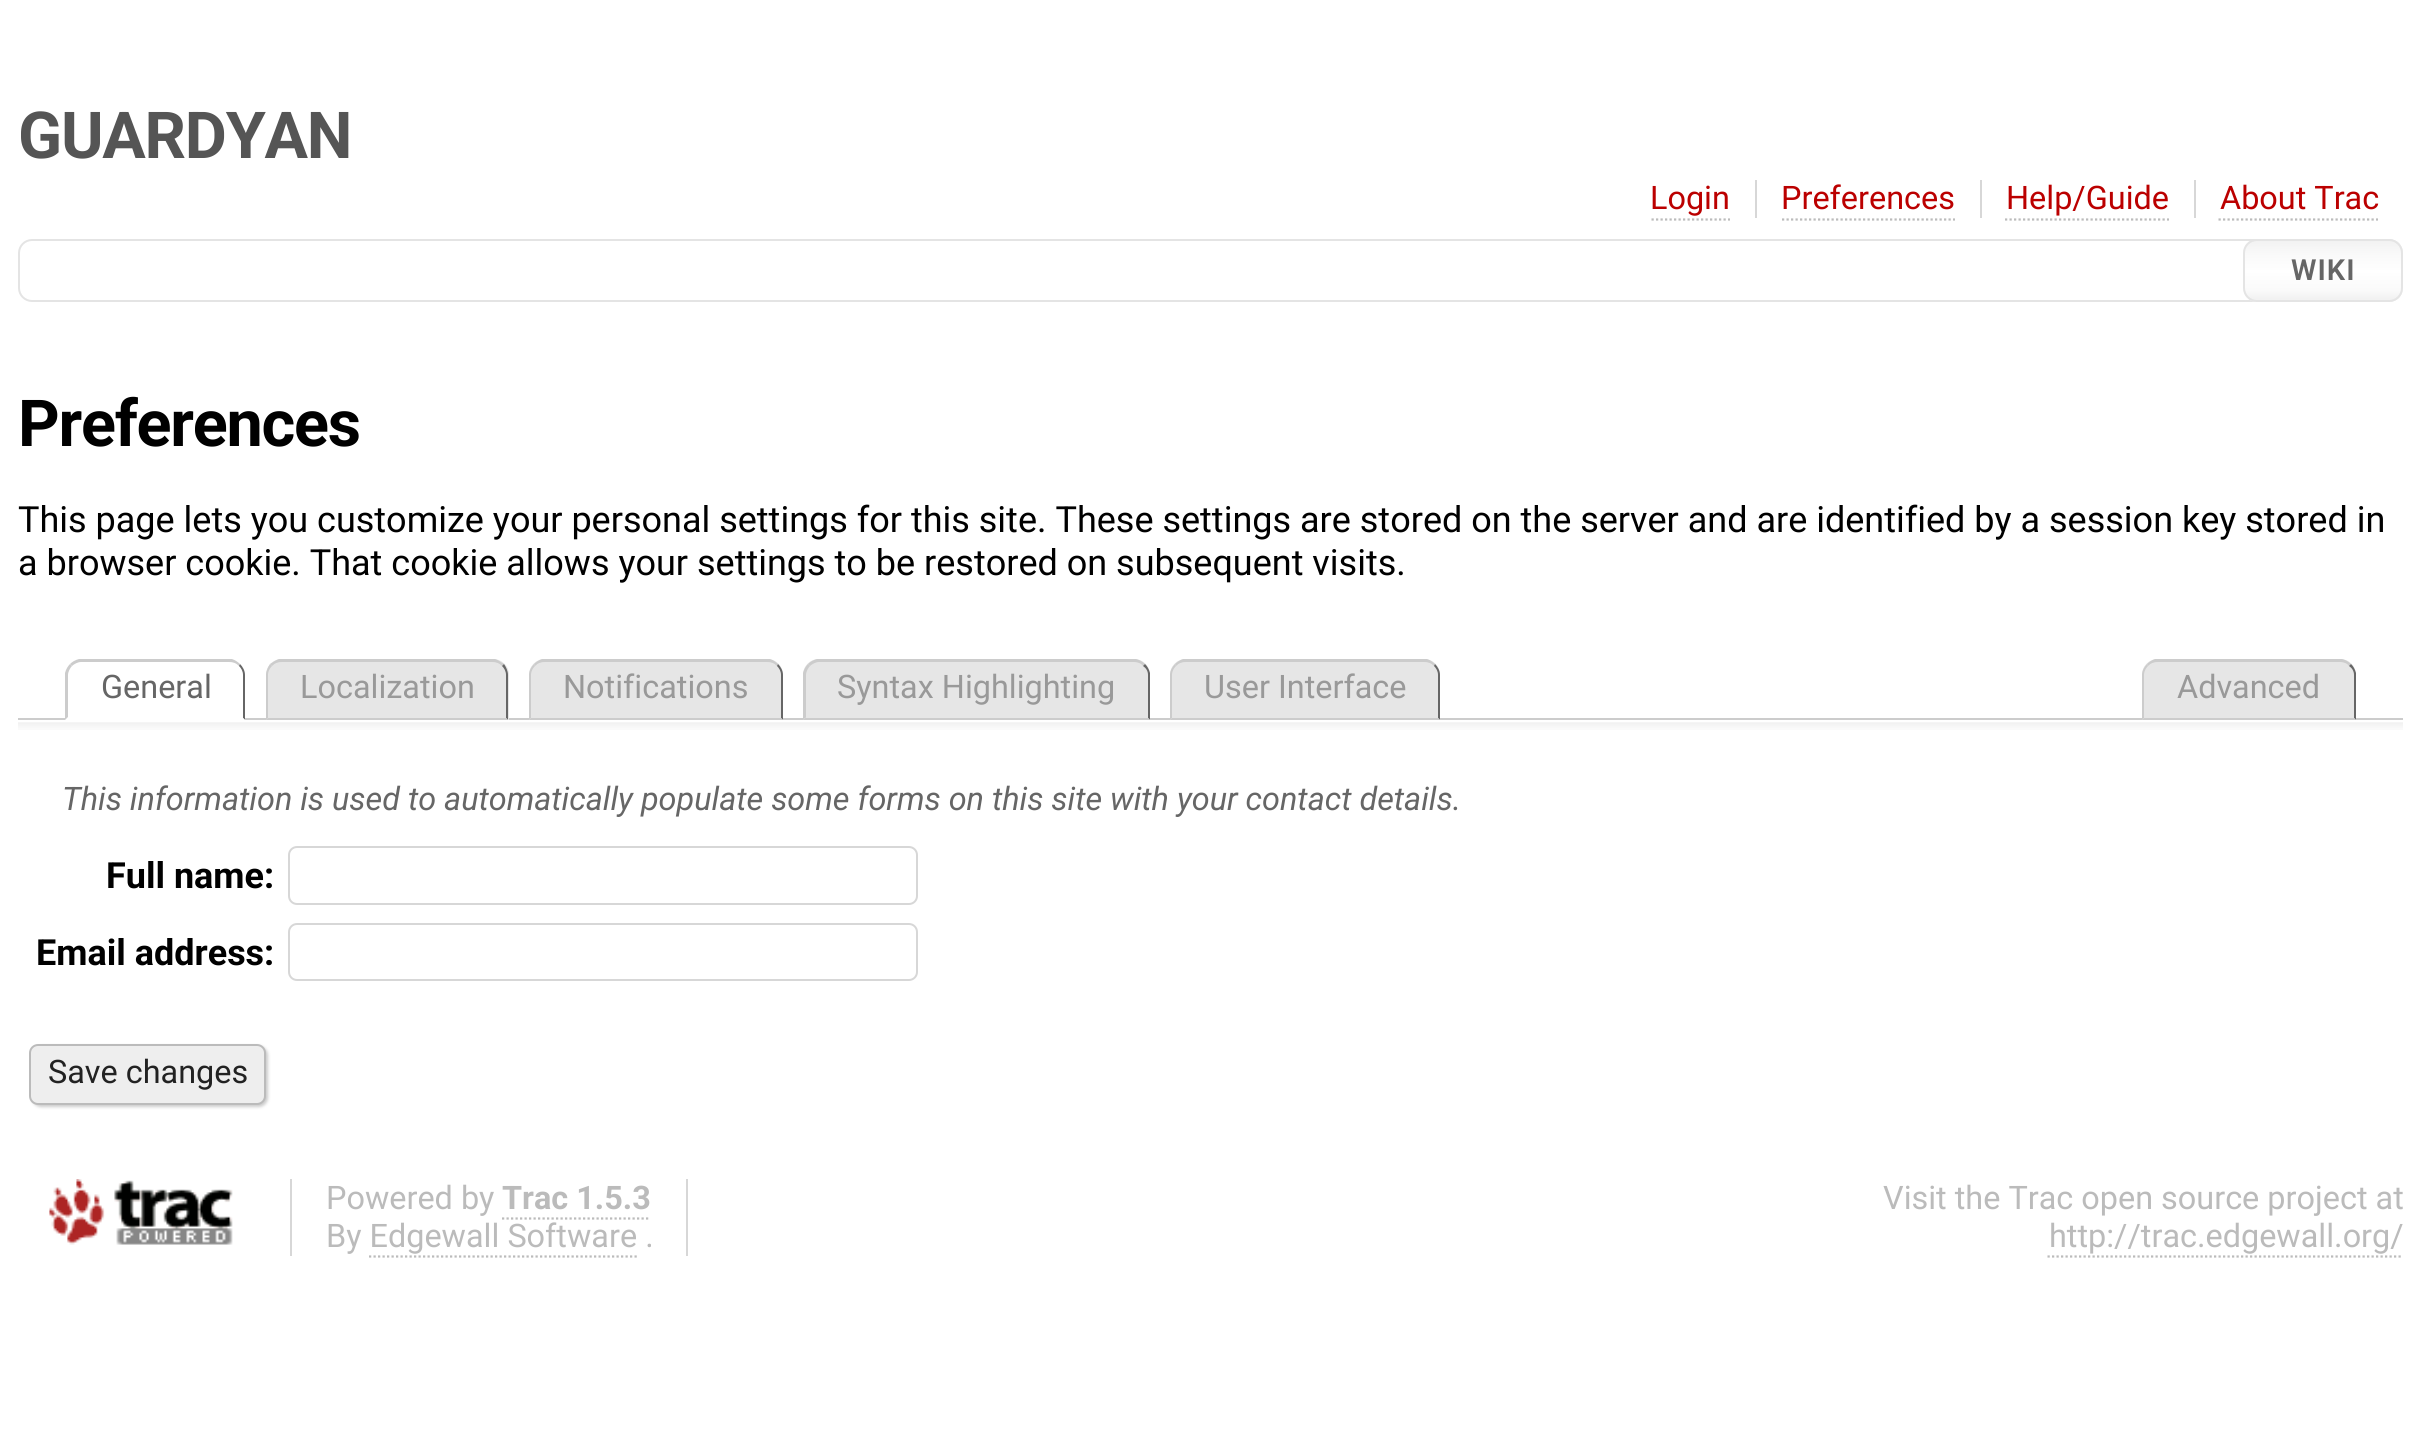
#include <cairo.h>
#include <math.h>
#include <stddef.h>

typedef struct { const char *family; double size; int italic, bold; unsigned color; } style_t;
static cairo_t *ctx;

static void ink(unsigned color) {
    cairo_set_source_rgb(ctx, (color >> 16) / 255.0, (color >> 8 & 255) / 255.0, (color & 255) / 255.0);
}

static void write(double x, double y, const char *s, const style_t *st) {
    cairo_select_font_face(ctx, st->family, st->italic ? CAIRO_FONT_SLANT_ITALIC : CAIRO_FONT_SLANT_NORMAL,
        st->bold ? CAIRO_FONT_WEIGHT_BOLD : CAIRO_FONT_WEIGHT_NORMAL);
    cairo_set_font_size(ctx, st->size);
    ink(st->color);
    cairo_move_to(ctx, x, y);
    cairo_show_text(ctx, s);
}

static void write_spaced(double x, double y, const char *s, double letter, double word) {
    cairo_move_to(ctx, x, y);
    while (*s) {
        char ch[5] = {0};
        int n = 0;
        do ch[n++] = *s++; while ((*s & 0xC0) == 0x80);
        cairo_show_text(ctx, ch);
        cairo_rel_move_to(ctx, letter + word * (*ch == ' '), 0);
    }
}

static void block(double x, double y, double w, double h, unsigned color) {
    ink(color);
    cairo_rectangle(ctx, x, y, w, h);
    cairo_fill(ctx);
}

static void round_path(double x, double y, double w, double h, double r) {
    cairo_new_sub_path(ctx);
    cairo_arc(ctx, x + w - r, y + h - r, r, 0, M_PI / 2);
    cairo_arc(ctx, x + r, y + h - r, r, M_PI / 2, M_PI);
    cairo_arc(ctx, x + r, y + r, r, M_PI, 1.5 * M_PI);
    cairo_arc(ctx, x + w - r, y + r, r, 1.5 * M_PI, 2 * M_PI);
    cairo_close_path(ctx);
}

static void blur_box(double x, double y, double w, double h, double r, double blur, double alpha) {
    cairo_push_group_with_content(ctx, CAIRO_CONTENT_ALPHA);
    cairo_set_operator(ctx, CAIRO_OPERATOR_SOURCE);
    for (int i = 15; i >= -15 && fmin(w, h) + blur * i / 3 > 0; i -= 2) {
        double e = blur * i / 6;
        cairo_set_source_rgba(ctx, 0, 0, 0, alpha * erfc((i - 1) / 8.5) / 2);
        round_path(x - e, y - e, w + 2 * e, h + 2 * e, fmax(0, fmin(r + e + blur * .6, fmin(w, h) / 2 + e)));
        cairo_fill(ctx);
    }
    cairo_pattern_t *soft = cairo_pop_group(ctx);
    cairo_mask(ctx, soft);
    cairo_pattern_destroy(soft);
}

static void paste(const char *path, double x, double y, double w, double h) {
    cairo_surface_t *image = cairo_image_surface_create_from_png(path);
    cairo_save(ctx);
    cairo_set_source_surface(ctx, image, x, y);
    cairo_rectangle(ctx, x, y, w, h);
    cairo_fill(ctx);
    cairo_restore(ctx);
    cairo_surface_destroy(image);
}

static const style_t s1 = {"Roboto", 32.4, 0, 0, 0xbb0000};
static const style_t s2 = {"Roboto", 36, 0, 0, 0x000000};
static const style_t s3 = {"Roboto", 32.4, 0, 0, 0x666666};
static const style_t s4 = {"Roboto", 32.4, 0, 0, 0x999999};
static const style_t s5 = {"Roboto", 32.4, 1, 0, 0x666666};
static const style_t s6 = {"Roboto", 36, 0, 1, 0x000000};
static const style_t s7 = {"Roboto", 32.4, 0, 0, 0x222222};
static const style_t s8 = {"Roboto", 32.4, 0, 0, 0xbbbbbb};
static const style_t s9 = {"Roboto", 32.4, 0, 1, 0xbbbbbb};

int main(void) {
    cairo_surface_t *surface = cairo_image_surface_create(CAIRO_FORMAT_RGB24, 2419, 1451);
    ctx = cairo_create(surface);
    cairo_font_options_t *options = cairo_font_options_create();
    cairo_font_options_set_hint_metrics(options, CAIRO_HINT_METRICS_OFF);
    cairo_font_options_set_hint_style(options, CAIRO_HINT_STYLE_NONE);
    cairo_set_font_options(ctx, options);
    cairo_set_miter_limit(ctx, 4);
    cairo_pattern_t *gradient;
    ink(0xffffff);
    cairo_paint(ctx);
    cairo_select_font_face(ctx, "Roboto", CAIRO_FONT_SLANT_NORMAL, CAIRO_FONT_WEIGHT_BOLD);
    cairo_set_font_size(ctx, 64.75);
    ink(0x555555);
    write_spaced(18, 158, "GUARDYAN", -1.25, 0);
    block(1755, 180, 2, 38, 0xd7d7d7);
    write(1650, 209, "Login", &s1);
    cairo_new_path(ctx);
    cairo_move_to(ctx, 1651.5, 219.5);
    cairo_line_to(ctx, 1730, 219.5);
    ink(0xbbbbbb);
    cairo_set_line_width(ctx, 2.2);
    cairo_set_dash(ctx, (double[]){2.25, 2.25}, 2, 0);
    cairo_stroke(ctx);
    block(1980, 180, 2, 38, 0xd7d7d7);
    write(1781, 209, "Preferences", &s1);
    cairo_new_path(ctx);
    cairo_move_to(ctx, 1782, 219.5);
    cairo_line_to(ctx, 1955, 219.5);
    ink(0xbbbbbb);
    cairo_stroke(ctx);
    block(2194, 180, 2, 38, 0xd7d7d7);
    write(2006, 209, "Help/Guide", &s1);
    cairo_new_path(ctx);
    cairo_move_to(ctx, 2005, 219.5);
    cairo_line_to(ctx, 2169, 219.5);
    ink(0xbbbbbb);
    cairo_stroke(ctx);
    write(2220, 209, "About Trac", &s1);
    cairo_new_path(ctx);
    cairo_move_to(ctx, 2218.5, 219.5);
    cairo_line_to(ctx, 2378, 219.5);
    ink(0xbbbbbb);
    cairo_stroke(ctx);
    round_path(19, 240, 2383, 61, 13);
    ink(0xe4e4e4);
    cairo_set_line_width(ctx, 2);
    cairo_set_dash(ctx, NULL, 0, 0);
    cairo_stroke(ctx);
    cairo_save(ctx);
    round_path(2243, 239, 160, 63, 14);
    cairo_clip(ctx);
    gradient = cairo_pattern_create_linear(2323, 241, 2323, 299);
    cairo_pattern_add_color_stop_rgba(gradient, 0, 0.949, 0.949, 0.949, 1);
    cairo_pattern_add_color_stop_rgba(gradient, 0.25, 0.98, 0.98, 0.98, 1);
    cairo_pattern_add_color_stop_rgba(gradient, 0.49, 0.996, 0.996, 0.996, 1);
    cairo_pattern_add_color_stop_rgba(gradient, 0.51, 1, 1, 1, 1);
    cairo_pattern_add_color_stop_rgba(gradient, 0.85, 0.98, 0.98, 0.98, 1);
    cairo_pattern_add_color_stop_rgba(gradient, 1, 0.949, 0.949, 0.949, 1);
    cairo_set_source(ctx, gradient);
    cairo_pattern_destroy(gradient);
    cairo_rectangle(ctx, 2243, 241, 160, 58);
    cairo_fill(ctx);
    gradient = cairo_pattern_create_linear(2323, 299, 2323, 358);
    cairo_pattern_add_color_stop_rgba(gradient, 0, 0.949, 0.949, 0.949, 1);
    cairo_pattern_add_color_stop_rgba(gradient, 0.25, 0.98, 0.98, 0.98, 1);
    cairo_pattern_add_color_stop_rgba(gradient, 0.49, 0.996, 0.996, 0.996, 1);
    cairo_pattern_add_color_stop_rgba(gradient, 0.51, 1, 1, 1, 1);
    cairo_pattern_add_color_stop_rgba(gradient, 0.85, 0.98, 0.98, 0.98, 1);
    cairo_pattern_add_color_stop_rgba(gradient, 1, 0.949, 0.949, 0.949, 1);
    cairo_set_source(ctx, gradient);
    cairo_pattern_destroy(gradient);
    cairo_rectangle(ctx, 2243, 299, 160, 3);
    cairo_fill(ctx);
    cairo_restore(ctx);
    round_path(2244, 240, 158, 61, 13);
    cairo_stroke(ctx);
    cairo_select_font_face(ctx, "Roboto SemiBold", CAIRO_FONT_SLANT_NORMAL, CAIRO_FONT_WEIGHT_NORMAL);
    cairo_set_font_size(ctx, 29);
    ink(0x666666);
    write_spaced(2291, 280, "WIKI", 1, 0);
    cairo_select_font_face(ctx, "Roboto", CAIRO_FONT_SLANT_NORMAL, CAIRO_FONT_WEIGHT_BOLD);
    cairo_set_font_size(ctx, 64.75);
    ink(0x000000);
    write_spaced(18, 446, "Preferences", -1.25, 0);
    write(18, 532, "This page lets you customize your personal settings for this site. These settings are stored on the server and are identified by a session key stored in", &s2);
    write(18, 575, "a browser cookie. That cookie allows your settings to be restored on subsequent visits.", &s2);
    block(18, 718, 2385, 2, 0xcccccc);
    ink(0xffffff);
    cairo_new_path(ctx);
    cairo_move_to(ctx, 81, 659);
    cairo_line_to(ctx, 229, 659);
    cairo_curve_to(ctx, 238, 659, 245, 666, 245, 675);
    cairo_line_to(ctx, 245, 720);
    cairo_line_to(ctx, 65, 720);
    cairo_line_to(ctx, 65, 675);
    cairo_curve_to(ctx, 65, 666, 72, 659, 81, 659);
    cairo_close_path(ctx);
    cairo_fill(ctx);
    ink(0xcccccc);
    cairo_new_path(ctx);
    cairo_move_to(ctx, 81, 662);
    cairo_curve_to(ctx, 78, 662, 74, 664, 72, 666);
    cairo_line_to(ctx, 70, 664);
    cairo_curve_to(ctx, 72, 662, 75, 660, 79, 659);
    cairo_line_to(ctx, 232, 659);
    cairo_curve_to(ctx, 235, 660, 238, 662, 240, 664);
    cairo_line_to(ctx, 239, 666);
    cairo_curve_to(ctx, 236, 663, 233, 662, 229, 662);
    cairo_close_path(ctx);
    cairo_fill(ctx);
    ink(0x666666);
    cairo_new_path(ctx);
    cairo_move_to(ctx, 240, 664);
    cairo_curve_to(ctx, 243, 667, 245, 671, 245, 675);
    cairo_line_to(ctx, 245, 720);
    cairo_line_to(ctx, 243, 718);
    cairo_line_to(ctx, 243, 675);
    cairo_curve_to(ctx, 243, 671, 241, 668, 239, 666);
    cairo_close_path(ctx);
    cairo_fill(ctx);
    ink(0xffffff);
    cairo_new_path(ctx);
    cairo_move_to(ctx, 65, 720);
    cairo_line_to(ctx, 245, 720);
    cairo_line_to(ctx, 243, 718);
    cairo_line_to(ctx, 68, 718);
    cairo_line_to(ctx, 68, 717);
    cairo_close_path(ctx);
    cairo_fill(ctx);
    ink(0xcccccc);
    cairo_new_path(ctx);
    cairo_move_to(ctx, 65, 720);
    cairo_line_to(ctx, 65, 673);
    cairo_curve_to(ctx, 66, 669, 68, 666, 70, 664);
    cairo_line_to(ctx, 72, 666);
    cairo_curve_to(ctx, 70, 668, 68, 672, 68, 675);
    cairo_line_to(ctx, 68, 717);
    cairo_close_path(ctx);
    cairo_fill(ctx);
    write(101, 698, "General", &s3);
    ink(0xe6e6e6);
    cairo_new_path(ctx);
    cairo_move_to(ctx, 282, 659);
    cairo_line_to(ctx, 493, 659);
    cairo_curve_to(ctx, 502, 659, 509, 666, 509, 675);
    cairo_line_to(ctx, 509, 720);
    cairo_line_to(ctx, 266, 720);
    cairo_line_to(ctx, 266, 675);
    cairo_curve_to(ctx, 266, 666, 273, 659, 282, 659);
    cairo_close_path(ctx);
    cairo_fill(ctx);
    ink(0xcccccc);
    cairo_new_path(ctx);
    cairo_move_to(ctx, 282, 662);
    cairo_curve_to(ctx, 278, 662, 275, 663, 272, 666);
    cairo_line_to(ctx, 270, 664);
    cairo_curve_to(ctx, 273, 662, 276, 660, 279, 659);
    cairo_line_to(ctx, 495, 659);
    cairo_curve_to(ctx, 498, 660, 501, 662, 504, 664);
    cairo_line_to(ctx, 502, 666);
    cairo_curve_to(ctx, 499, 663, 496, 662, 492, 662);
    cairo_close_path(ctx);
    cairo_fill(ctx);
    ink(0x666666);
    cairo_new_path(ctx);
    cairo_move_to(ctx, 504, 664);
    cairo_curve_to(ctx, 506, 667, 508, 671, 508, 675);
    cairo_line_to(ctx, 508, 720);
    cairo_line_to(ctx, 506, 718);
    cairo_line_to(ctx, 506, 675);
    cairo_curve_to(ctx, 506, 671, 504, 668, 502, 666);
    cairo_close_path(ctx);
    cairo_fill(ctx);
    ink(0xcccccc);
    cairo_new_path(ctx);
    cairo_move_to(ctx, 266, 720);
    cairo_line_to(ctx, 508, 720);
    cairo_line_to(ctx, 506, 718);
    cairo_line_to(ctx, 268, 718);
    cairo_close_path(ctx);
    cairo_fill(ctx);
    cairo_new_path(ctx);
    cairo_move_to(ctx, 266, 720);
    cairo_line_to(ctx, 266, 675);
    cairo_curve_to(ctx, 266, 671, 268, 667, 270, 664);
    cairo_line_to(ctx, 272, 666);
    cairo_curve_to(ctx, 270, 668, 268, 671, 268, 675);
    cairo_line_to(ctx, 268, 718);
    cairo_close_path(ctx);
    cairo_fill(ctx);
    write(300, 698, "Localization", &s4);
    ink(0xe6e6e6);
    cairo_new_path(ctx);
    cairo_move_to(ctx, 545, 659);
    cairo_line_to(ctx, 767, 659);
    cairo_curve_to(ctx, 776, 659, 783, 666, 783, 675);
    cairo_line_to(ctx, 783, 720);
    cairo_line_to(ctx, 529, 720);
    cairo_line_to(ctx, 529, 675);
    cairo_curve_to(ctx, 529, 666, 536, 659, 545, 659);
    cairo_close_path(ctx);
    cairo_fill(ctx);
    ink(0xcccccc);
    cairo_new_path(ctx);
    cairo_move_to(ctx, 545, 662);
    cairo_curve_to(ctx, 541, 662, 538, 663, 535, 666);
    cairo_line_to(ctx, 534, 664);
    cairo_curve_to(ctx, 536, 662, 539, 660, 542, 659);
    cairo_line_to(ctx, 770, 659);
    cairo_curve_to(ctx, 773, 660, 776, 662, 778, 664);
    cairo_line_to(ctx, 777, 666);
    cairo_curve_to(ctx, 774, 663, 771, 662, 767, 662);
    cairo_close_path(ctx);
    cairo_fill(ctx);
    ink(0x666666);
    cairo_new_path(ctx);
    cairo_move_to(ctx, 783, 720);
    cairo_line_to(ctx, 783, 675);
    cairo_curve_to(ctx, 783, 671, 781, 667, 778, 664);
    cairo_line_to(ctx, 777, 666);
    cairo_curve_to(ctx, 779, 668, 781, 671, 781, 675);
    cairo_line_to(ctx, 781, 718);
    cairo_close_path(ctx);
    cairo_fill(ctx);
    ink(0xcccccc);
    cairo_new_path(ctx);
    cairo_move_to(ctx, 783, 720);
    cairo_line_to(ctx, 781, 718);
    cairo_line_to(ctx, 531, 718);
    cairo_line_to(ctx, 529, 720);
    cairo_close_path(ctx);
    cairo_fill(ctx);
    cairo_new_path(ctx);
    cairo_move_to(ctx, 529, 720);
    cairo_line_to(ctx, 529, 675);
    cairo_curve_to(ctx, 529, 671, 531, 667, 534, 664);
    cairo_line_to(ctx, 535, 666);
    cairo_curve_to(ctx, 533, 668, 531, 671, 531, 675);
    cairo_line_to(ctx, 531, 718);
    cairo_close_path(ctx);
    cairo_fill(ctx);
    write(563, 698, "Notifications", &s4);
    ink(0xe6e6e6);
    cairo_new_path(ctx);
    cairo_move_to(ctx, 819, 659);
    cairo_line_to(ctx, 1134, 659);
    cairo_curve_to(ctx, 1143, 659, 1150, 666, 1150, 675);
    cairo_line_to(ctx, 1150, 720);
    cairo_line_to(ctx, 803, 720);
    cairo_line_to(ctx, 803, 675);
    cairo_curve_to(ctx, 803, 666, 810, 659, 819, 659);
    cairo_close_path(ctx);
    cairo_fill(ctx);
    ink(0xcccccc);
    cairo_new_path(ctx);
    cairo_move_to(ctx, 819, 662);
    cairo_curve_to(ctx, 816, 662, 812, 664, 810, 666);
    cairo_line_to(ctx, 808, 664);
    cairo_curve_to(ctx, 810, 662, 813, 660, 817, 659);
    cairo_line_to(ctx, 1136, 659);
    cairo_curve_to(ctx, 1140, 660, 1143, 662, 1145, 664);
    cairo_line_to(ctx, 1143, 666);
    cairo_curve_to(ctx, 1141, 663, 1137, 662, 1134, 662);
    cairo_close_path(ctx);
    cairo_fill(ctx);
    ink(0x666666);
    cairo_new_path(ctx);
    cairo_move_to(ctx, 1150, 673);
    cairo_line_to(ctx, 1150, 720);
    cairo_line_to(ctx, 1148, 718);
    cairo_line_to(ctx, 1148, 675);
    cairo_curve_to(ctx, 1148, 671, 1146, 668, 1143, 666);
    cairo_line_to(ctx, 1145, 664);
    cairo_curve_to(ctx, 1147, 666, 1149, 669, 1150, 673);
    cairo_close_path(ctx);
    cairo_fill(ctx);
    ink(0xcccccc);
    cairo_new_path(ctx);
    cairo_move_to(ctx, 1150, 720);
    cairo_line_to(ctx, 1148, 718);
    cairo_line_to(ctx, 806, 718);
    cairo_line_to(ctx, 806, 717);
    cairo_line_to(ctx, 803, 720);
    cairo_close_path(ctx);
    cairo_fill(ctx);
    cairo_new_path(ctx);
    cairo_move_to(ctx, 803, 720);
    cairo_line_to(ctx, 803, 673);
    cairo_curve_to(ctx, 804, 669, 806, 666, 808, 664);
    cairo_line_to(ctx, 810, 666);
    cairo_curve_to(ctx, 808, 668, 806, 672, 806, 675);
    cairo_line_to(ctx, 806, 717);
    cairo_close_path(ctx);
    cairo_fill(ctx);
    write(837, 698, "Syntax Highlighting", &s4);
    ink(0xe6e6e6);
    cairo_new_path(ctx);
    cairo_move_to(ctx, 1186, 659);
    cairo_line_to(ctx, 1424, 659);
    cairo_curve_to(ctx, 1433, 659, 1440, 666, 1440, 675);
    cairo_line_to(ctx, 1440, 720);
    cairo_line_to(ctx, 1170, 720);
    cairo_line_to(ctx, 1170, 675);
    cairo_curve_to(ctx, 1170, 666, 1177, 659, 1186, 659);
    cairo_close_path(ctx);
    cairo_fill(ctx);
    ink(0xcccccc);
    cairo_new_path(ctx);
    cairo_move_to(ctx, 1186, 662);
    cairo_curve_to(ctx, 1182, 662, 1179, 663, 1176, 666);
    cairo_line_to(ctx, 1175, 664);
    cairo_curve_to(ctx, 1177, 662, 1180, 660, 1183, 659);
    cairo_line_to(ctx, 1427, 659);
    cairo_curve_to(ctx, 1430, 660, 1433, 662, 1435, 664);
    cairo_line_to(ctx, 1434, 666);
    cairo_curve_to(ctx, 1431, 663, 1428, 662, 1424, 662);
    cairo_close_path(ctx);
    cairo_fill(ctx);
    ink(0x666666);
    cairo_new_path(ctx);
    cairo_move_to(ctx, 1440, 720);
    cairo_line_to(ctx, 1440, 675);
    cairo_curve_to(ctx, 1440, 671, 1438, 667, 1435, 664);
    cairo_line_to(ctx, 1434, 666);
    cairo_curve_to(ctx, 1436, 668, 1438, 671, 1438, 675);
    cairo_line_to(ctx, 1438, 718);
    cairo_close_path(ctx);
    cairo_fill(ctx);
    ink(0xcccccc);
    cairo_new_path(ctx);
    cairo_move_to(ctx, 1440, 720);
    cairo_line_to(ctx, 1438, 718);
    cairo_line_to(ctx, 1172, 718);
    cairo_line_to(ctx, 1170, 720);
    cairo_close_path(ctx);
    cairo_fill(ctx);
    cairo_new_path(ctx);
    cairo_move_to(ctx, 1170, 720);
    cairo_line_to(ctx, 1172, 718);
    cairo_line_to(ctx, 1172, 675);
    cairo_curve_to(ctx, 1172, 671, 1174, 668, 1176, 666);
    cairo_line_to(ctx, 1175, 664);
    cairo_curve_to(ctx, 1172, 667, 1170, 671, 1170, 675);
    cairo_close_path(ctx);
    cairo_fill(ctx);
    write(1204, 698, "User Interface", &s4);
    ink(0xe6e6e6);
    cairo_new_path(ctx);
    cairo_move_to(ctx, 2158, 659);
    cairo_line_to(ctx, 2340, 659);
    cairo_curve_to(ctx, 2349, 659, 2356, 666, 2356, 675);
    cairo_line_to(ctx, 2356, 720);
    cairo_line_to(ctx, 2142, 720);
    cairo_line_to(ctx, 2142, 675);
    cairo_curve_to(ctx, 2142, 666, 2149, 659, 2158, 659);
    cairo_close_path(ctx);
    cairo_fill(ctx);
    ink(0xcccccc);
    cairo_new_path(ctx);
    cairo_move_to(ctx, 2158, 662);
    cairo_curve_to(ctx, 2154, 662, 2151, 663, 2148, 666);
    cairo_line_to(ctx, 2147, 664);
    cairo_curve_to(ctx, 2149, 662, 2152, 660, 2155, 659);
    cairo_line_to(ctx, 2342, 659);
    cairo_curve_to(ctx, 2346, 660, 2349, 662, 2351, 664);
    cairo_line_to(ctx, 2349, 666);
    cairo_curve_to(ctx, 2347, 663, 2343, 662, 2340, 662);
    cairo_close_path(ctx);
    cairo_fill(ctx);
    ink(0x666666);
    cairo_new_path(ctx);
    cairo_move_to(ctx, 2356, 673);
    cairo_line_to(ctx, 2356, 720);
    cairo_line_to(ctx, 2354, 718);
    cairo_line_to(ctx, 2354, 675);
    cairo_curve_to(ctx, 2354, 671, 2352, 668, 2349, 666);
    cairo_line_to(ctx, 2351, 664);
    cairo_curve_to(ctx, 2353, 666, 2355, 669, 2356, 673);
    cairo_close_path(ctx);
    cairo_fill(ctx);
    ink(0xcccccc);
    cairo_new_path(ctx);
    cairo_move_to(ctx, 2356, 720);
    cairo_line_to(ctx, 2354, 718);
    cairo_line_to(ctx, 2144, 718);
    cairo_line_to(ctx, 2142, 720);
    cairo_close_path(ctx);
    cairo_fill(ctx);
    cairo_new_path(ctx);
    cairo_move_to(ctx, 2142, 720);
    cairo_line_to(ctx, 2144, 718);
    cairo_line_to(ctx, 2144, 675);
    cairo_curve_to(ctx, 2144, 671, 2146, 668, 2148, 666);
    cairo_line_to(ctx, 2147, 664);
    cairo_curve_to(ctx, 2144, 667, 2142, 671, 2142, 675);
    cairo_close_path(ctx);
    cairo_fill(ctx);
    write(2177, 698, "Advanced", &s4);
    paste("pic1.png", 18, 722, 2385, 8);
    write(62, 810, "This information is used to automatically populate some forms on this site with your contact details.", &s5);
    write(106, 888, "Full name:", &s6);
    round_path(289, 847, 628, 57, 8);
    ink(0xd7d7d7);
    cairo_stroke(ctx);
    write(36, 965, "Email address:", &s6);
    round_path(289, 924, 628, 56, 8);
    ink(0xd7d7d7);
    cairo_stroke(ctx);
    ink(0xcccccc);
    blur_box(32, 1046, 236, 61, 9, 1.5, 1);
    ink(0xeeeeee);
    round_path(30, 1045, 235, 59, 8);
    cairo_fill_preserve(ctx);
    ink(0xbbbbbb);
    cairo_stroke(ctx);
    write(48, 1083, "Save changes", &s7);
    paste("pic2.png", 49, 1179, 184, 66);
    block(686, 1179, 2, 77, 0xd7d7d7);
    block(290, 1179, 2, 77, 0xd7d7d7);
    write(326, 1209, "Powered by", &s8);
    write(502, 1209, "Trac 1.5.3", &s9);
    cairo_new_path(ctx);
    cairo_move_to(ctx, 502, 1218.5);
    cairo_line_to(ctx, 650, 1218.5);
    cairo_set_line_width(ctx, 2.2);
    cairo_set_dash(ctx, (double[]){2.25, 2.25}, 2, 0);
    cairo_stroke(ctx);
    write(326, 1247, "By Edgewall Software .", &s8);
    cairo_new_path(ctx);
    cairo_move_to(ctx, 369, 1256.5);
    cairo_line_to(ctx, 637, 1256.5);
    cairo_stroke(ctx);
    write(1883, 1209, "Visit the Trac open source project at", &s8);
    write(2049, 1247, "http://trac.edgewall.org/", &s8);
    cairo_new_path(ctx);
    cairo_move_to(ctx, 2047.5, 1256.5);
    cairo_line_to(ctx, 2403, 1256.5);
    cairo_stroke(ctx);
    cairo_surface_write_to_png(surface, "screenshot.png");
    cairo_font_options_destroy(options);
    cairo_destroy(ctx);
    cairo_surface_destroy(surface);
    return 0;
}
